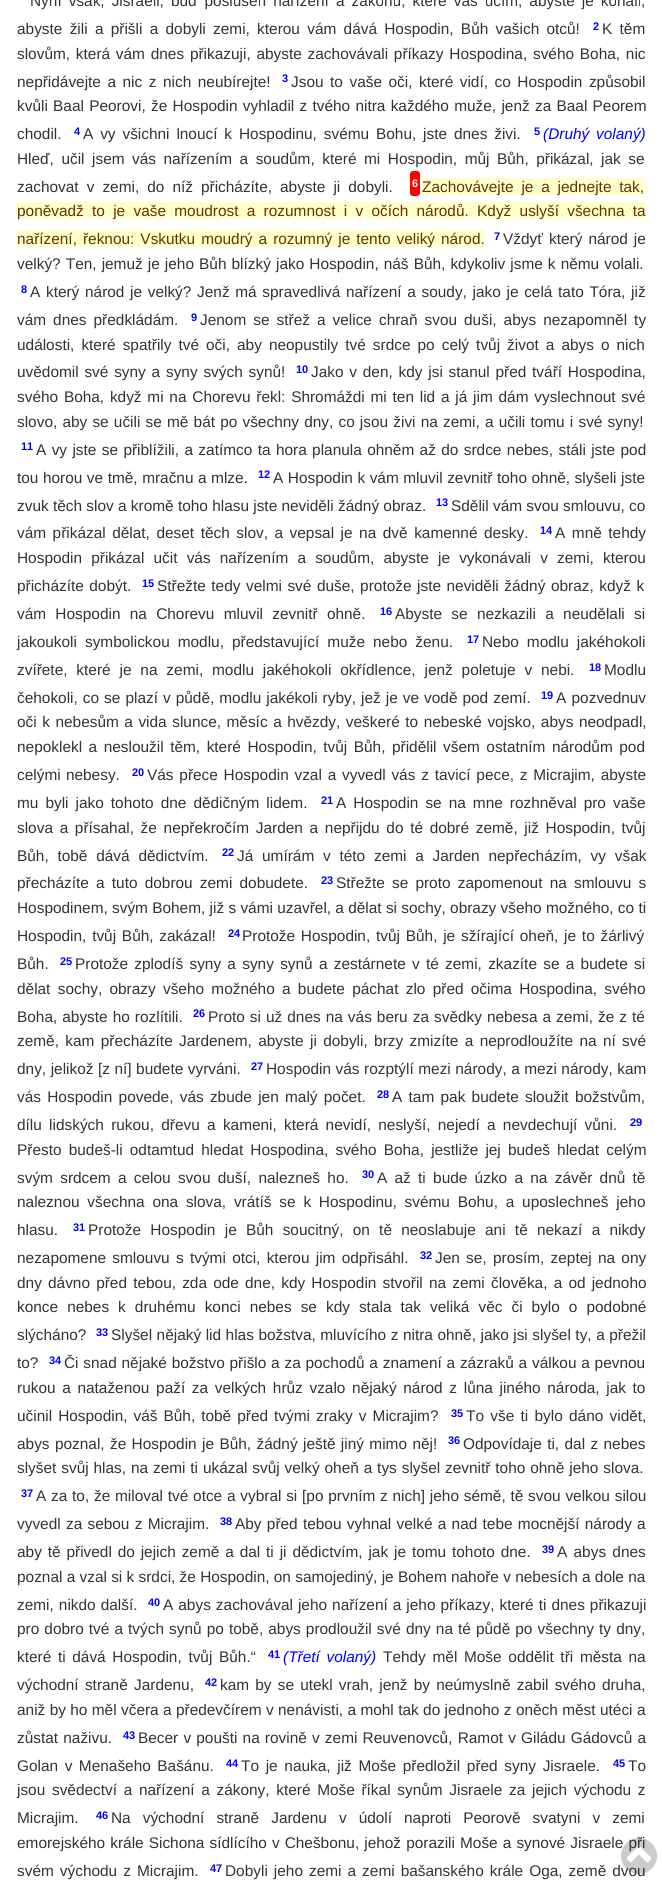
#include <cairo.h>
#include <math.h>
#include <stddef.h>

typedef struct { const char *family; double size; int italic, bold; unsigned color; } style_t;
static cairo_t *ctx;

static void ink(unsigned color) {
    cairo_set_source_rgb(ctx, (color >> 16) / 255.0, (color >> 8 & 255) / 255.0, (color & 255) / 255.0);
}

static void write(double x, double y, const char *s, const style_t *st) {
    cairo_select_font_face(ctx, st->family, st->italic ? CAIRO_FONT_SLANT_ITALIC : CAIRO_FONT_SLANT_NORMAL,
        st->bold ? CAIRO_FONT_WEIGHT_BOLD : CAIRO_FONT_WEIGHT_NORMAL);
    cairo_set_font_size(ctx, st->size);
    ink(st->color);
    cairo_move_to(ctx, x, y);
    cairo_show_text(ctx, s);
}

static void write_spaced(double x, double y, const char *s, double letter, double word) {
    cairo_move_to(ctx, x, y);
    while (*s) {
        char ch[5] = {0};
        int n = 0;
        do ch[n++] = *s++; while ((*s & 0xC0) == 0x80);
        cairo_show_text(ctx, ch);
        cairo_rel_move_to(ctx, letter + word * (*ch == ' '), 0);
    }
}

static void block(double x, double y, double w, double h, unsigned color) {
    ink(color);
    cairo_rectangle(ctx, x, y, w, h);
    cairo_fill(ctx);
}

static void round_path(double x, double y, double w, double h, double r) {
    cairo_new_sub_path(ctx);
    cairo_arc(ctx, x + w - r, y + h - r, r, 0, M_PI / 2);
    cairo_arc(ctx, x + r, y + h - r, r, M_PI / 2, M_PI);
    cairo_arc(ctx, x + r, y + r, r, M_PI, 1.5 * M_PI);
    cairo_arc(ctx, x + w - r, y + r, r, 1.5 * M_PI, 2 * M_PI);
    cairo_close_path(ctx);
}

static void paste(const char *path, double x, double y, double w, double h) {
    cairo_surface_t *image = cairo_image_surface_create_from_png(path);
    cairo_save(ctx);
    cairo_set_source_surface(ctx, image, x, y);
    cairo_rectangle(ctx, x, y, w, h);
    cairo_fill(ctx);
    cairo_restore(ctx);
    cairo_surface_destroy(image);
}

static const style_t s1 = {"Liberation Sans", 11, 0, 1, 0x0000ff};
static const style_t s2 = {"Liberation Sans", 15.4, 0, 0, 0x333333};
static const style_t s3 = {"Liberation Sans", 11, 0, 1, 0xffffff};

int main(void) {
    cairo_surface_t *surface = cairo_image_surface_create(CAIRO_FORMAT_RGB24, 662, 1892);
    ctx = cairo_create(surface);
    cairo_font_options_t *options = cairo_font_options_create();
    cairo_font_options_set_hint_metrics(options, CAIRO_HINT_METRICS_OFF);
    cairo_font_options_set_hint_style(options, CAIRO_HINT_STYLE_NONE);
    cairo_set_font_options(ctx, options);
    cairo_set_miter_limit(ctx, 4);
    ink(0xffffff);
    cairo_paint(ctx);
    cairo_select_font_face(ctx, "Liberation Sans", CAIRO_FONT_SLANT_NORMAL, CAIRO_FONT_WEIGHT_NORMAL);
    cairo_set_font_size(ctx, 15.4);
    ink(0x333333);
    write_spaced(30, 6, "Nyní však, Jisraeli, buď poslušen nařízení a zákonů, které vás učím, abyste je konali,", 0, 2.75);
    write_spaced(17, 34, "abyste žili a přišli a dobyli zemi, kterou vám dává Hospodin, Bůh vašich otců!", 0, 3);
    write(593, 30, "2", &s1);
    cairo_select_font_face(ctx, "Liberation Sans", CAIRO_FONT_SLANT_NORMAL, CAIRO_FONT_WEIGHT_NORMAL);
    cairo_set_font_size(ctx, 15.4);
    ink(0x333333);
    write_spaced(602, 34, "K těm", 0, 3);
    write_spaced(17, 59, "slovům, která vám dnes přikazuji, abyste zachovávali příkazy Hospodina, svého Boha, nic", 0, 1.5);
    write_spaced(17, 87, "nepřidávejte a nic z nich neubírejte!", 0, 2.25);
    write(282, 82, "3", &s1);
    cairo_select_font_face(ctx, "Liberation Sans", CAIRO_FONT_SLANT_NORMAL, CAIRO_FONT_WEIGHT_NORMAL);
    cairo_set_font_size(ctx, 15.4);
    ink(0x333333);
    write_spaced(291, 87, "Jsou to vaše oči, které vidí, co Hospodin způsobil", 0, 2.25);
    write_spaced(17, 111, "kvůli Baal Peorovi, že Hospodin vyhladil z tvého nitra každého muže, jenž za Baal Peorem", 0, 1);
    write(17, 139, "chodil.", &s2);
    write(534, 135, "5", &s1);
    cairo_select_font_face(ctx, "Liberation Sans", CAIRO_FONT_SLANT_ITALIC, CAIRO_FONT_WEIGHT_NORMAL);
    cairo_set_font_size(ctx, 15.4);
    write_spaced(543, 139, "(Druhý volaný)", 0, 2.6);
    cairo_select_font_face(ctx, "Liberation Sans", CAIRO_FONT_SLANT_NORMAL, CAIRO_FONT_WEIGHT_NORMAL);
    ink(0x333333);
    write_spaced(17, 164, "Hleď, učil jsem vás nařízením a soudům, které mi Hospodin, můj Bůh, přikázal, jak se", 0, 3.25);
    write_spaced(17, 192, "zachovat v zemi, do níž přicházíte, abyste ji dobyli.", 0, 3.75);
    write(74, 135, "4", &s1);
    cairo_select_font_face(ctx, "Liberation Sans", CAIRO_FONT_SLANT_NORMAL, CAIRO_FONT_WEIGHT_NORMAL);
    cairo_set_font_size(ctx, 15.4);
    ink(0x333333);
    write_spaced(83, 139, "A vy všichni lnoucí k Hospodinu, svému Bohu, jste dnes živi.", 0, 2.6);
    ink(0xff0000);
    round_path(410, 171, 10, 25, 3);
    cairo_fill(ctx);
    write(412, 187, "6", &s3);
    block(422, 178, 223, 17, 0xffffcc);
    cairo_select_font_face(ctx, "Liberation Sans", CAIRO_FONT_SLANT_NORMAL, CAIRO_FONT_WEIGHT_NORMAL);
    cairo_set_font_size(ctx, 15.4);
    ink(0x663300);
    write_spaced(422, 192, "Zachovávejte je a jednejte tak,", 0, 3.5);
    block(17, 202, 628, 17, 0xffffcc);
    ink(0x663300);
    write_spaced(17, 216, "poněvadž to je vaše moudrost a rozumnost i v očích národů. Když uslyší všechna ta", 0, 4);
    write(494, 240, "7", &s1);
    cairo_select_font_face(ctx, "Liberation Sans", CAIRO_FONT_SLANT_NORMAL, CAIRO_FONT_WEIGHT_NORMAL);
    cairo_set_font_size(ctx, 15.4);
    ink(0x333333);
    write_spaced(503, 244, "Vždyť který národ je", 0, 1.75);
    write_spaced(17, 269, "velký? Ten, jemuž je jeho Bůh blízký jako Hospodin, náš Bůh, kdykoliv jsme k němu volali.", 0, 0.8);
    block(17, 230, 467, 17, 0xffffcc);
    ink(0x663300);
    write_spaced(17, 244, "nařízení, řeknou: Vskutku moudrý a rozumný je tento veliký národ.", 0, 1.75);
    write(21, 293, "8", &s1);
    cairo_select_font_face(ctx, "Liberation Sans", CAIRO_FONT_SLANT_NORMAL, CAIRO_FONT_WEIGHT_NORMAL);
    cairo_set_font_size(ctx, 15.4);
    ink(0x333333);
    write_spaced(30, 297, "A který národ je velký? Jenž má spravedlivá nařízení a soudy, jako je celá tato Tóra, již", 0, 1.4);
    write_spaced(17, 325, "vám dnes předkládám.", 0, 2.75);
    write(191, 321, "9", &s1);
    cairo_select_font_face(ctx, "Liberation Sans", CAIRO_FONT_SLANT_NORMAL, CAIRO_FONT_WEIGHT_NORMAL);
    cairo_set_font_size(ctx, 15.4);
    ink(0x333333);
    write_spaced(200, 325, "Jenom se střež a velice chraň svou duši, abys nezapomněl ty", 0, 2.75);
    write_spaced(17, 350, "události, které spatřily tvé oči, aby neopustily tvé srdce po celý tvůj život a abys o nich", 0, 2.75);
    write_spaced(17, 377, "uvědomil své syny a syny svých synů!", 0, 1.5);
    write(296, 373, "10", &s1);
    cairo_select_font_face(ctx, "Liberation Sans", CAIRO_FONT_SLANT_NORMAL, CAIRO_FONT_WEIGHT_NORMAL);
    cairo_set_font_size(ctx, 15.4);
    ink(0x333333);
    write_spaced(311, 377, "Jako v den, kdy jsi stanul před tváří Hospodina,", 0, 1.5);
    write_spaced(17, 402, "svého Boha, když mi na Chorevu řekl: Shromáždi mi ten lid a já jim dám vyslechnout své", 0, 1.5);
    write_spaced(17, 427, "slovo, aby se učili se mě bát po všechny dny, co jsou živi na zemi, a učili tomu i své syny!", 0, 0.9);
    write(21, 450, "11", &s1);
    cairo_select_font_face(ctx, "Liberation Sans", CAIRO_FONT_SLANT_NORMAL, CAIRO_FONT_WEIGHT_NORMAL);
    cairo_set_font_size(ctx, 15.4);
    ink(0x333333);
    write_spaced(36, 455, "A vy jste se přiblížili, a zatímco ta hora planula ohněm až do srdce nebes, stáli jste pod", 0, 1.1);
    write_spaced(17, 483, "tou horou ve tmě, mračnu a mlze.", 0, 0.25);
    write(258, 478, "12", &s1);
    cairo_select_font_face(ctx, "Liberation Sans", CAIRO_FONT_SLANT_NORMAL, CAIRO_FONT_WEIGHT_NORMAL);
    cairo_set_font_size(ctx, 15.4);
    ink(0x333333);
    write_spaced(273, 483, "A Hospodin k vám mluvil zevnitř toho ohně, slyšeli jste", 0, 0.25);
    write(17, 511, "zvuk těch slov a kromě toho hlasu jste neviděli žádný obraz.", &s2);
    write(436, 506, "13", &s1);
    write(451, 511, "Sdělil vám svou smlouvu, co", &s2);
    write_spaced(17, 538, "vám přikázal dělat, deset těch slov, a vepsal je na dvě kamenné desky.", 0, 2.25);
    write(540, 534, "14", &s1);
    cairo_select_font_face(ctx, "Liberation Sans", CAIRO_FONT_SLANT_NORMAL, CAIRO_FONT_WEIGHT_NORMAL);
    cairo_set_font_size(ctx, 15.4);
    ink(0x333333);
    write_spaced(555, 538, "A mně tehdy", 0, 2.25);
    write_spaced(17, 563, "Hospodin přikázal učit vás nařízením a soudům, abyste je vykonávali v zemi, kterou", 0, 4.9);
    write_spaced(17, 591, "přicházíte dobýt.", 0, 1.25);
    write(142, 587, "15", &s1);
    cairo_select_font_face(ctx, "Liberation Sans", CAIRO_FONT_SLANT_NORMAL, CAIRO_FONT_WEIGHT_NORMAL);
    cairo_set_font_size(ctx, 15.4);
    ink(0x333333);
    write_spaced(157, 591, "Střežte tedy velmi své duše, protože jste neviděli žádný obraz, když k", 0, 1.25);
    write_spaced(17, 619, "vám Hospodin na Chorevu mluvil zevnitř ohně.", 0, 5);
    write(380, 615, "16", &s1);
    cairo_select_font_face(ctx, "Liberation Sans", CAIRO_FONT_SLANT_NORMAL, CAIRO_FONT_WEIGHT_NORMAL);
    cairo_set_font_size(ctx, 15.4);
    ink(0x333333);
    write_spaced(395, 619, "Abyste se nezkazili a neudělali si", 0, 5);
    write_spaced(17, 647, "jakoukoli symbolickou modlu, představující muže nebo ženu.", 0, 3.75);
    write(467, 643, "17", &s1);
    cairo_select_font_face(ctx, "Liberation Sans", CAIRO_FONT_SLANT_NORMAL, CAIRO_FONT_WEIGHT_NORMAL);
    cairo_set_font_size(ctx, 15.4);
    ink(0x333333);
    write_spaced(482, 647, "Nebo modlu jakéhokoli", 0, 3.75);
    write_spaced(17, 675, "zvířete, které je na zemi, modlu jakéhokoli okřídlence, jenž poletuje v nebi.", 0, 4.6);
    write(589, 671, "18", &s1);
    write(604, 675, "Modlu", &s2);
    write_spaced(17, 703, "čehokoli, co se plazí v půdě, modlu jakékoli ryby, jež je ve vodě pod zemí.", 0, 0.75);
    write(541, 699, "19", &s1);
    cairo_select_font_face(ctx, "Liberation Sans", CAIRO_FONT_SLANT_NORMAL, CAIRO_FONT_WEIGHT_NORMAL);
    cairo_set_font_size(ctx, 15.4);
    ink(0x333333);
    write_spaced(556, 703, "A pozvednuv", 0, 1);
    write_spaced(17, 727, "oči k nebesům a vida slunce, měsíc a hvězdy, veškeré to nebeské vojsko, abys neodpadl,", 0, 1.25);
    write_spaced(17, 752, "nepoklekl a nesloužil těm, které Hospodin, tvůj Bůh, přidělil všem ostatním národům pod", 0, 2.25);
    write_spaced(17, 780, "celými nebesy.", 0, 1);
    write(132, 776, "20", &s1);
    cairo_select_font_face(ctx, "Liberation Sans", CAIRO_FONT_SLANT_NORMAL, CAIRO_FONT_WEIGHT_NORMAL);
    cairo_set_font_size(ctx, 15.4);
    ink(0x333333);
    write_spaced(147, 780, "Vás přece Hospodin vzal a vyvedl vás z tavicí pece, z Micrajim, abyste", 0, 1.5);
    write_spaced(17, 808, "mu byli jako tohoto dne dědičným lidem.", 0, 2.75);
    write(321, 804, "21", &s1);
    cairo_select_font_face(ctx, "Liberation Sans", CAIRO_FONT_SLANT_NORMAL, CAIRO_FONT_WEIGHT_NORMAL);
    cairo_set_font_size(ctx, 15.4);
    ink(0x333333);
    write_spaced(336, 808, "A Hospodin se na mne rozhněval pro vaše", 0, 2.75);
    write_spaced(17, 833, "slova a přísahal, že nepřekročím Jarden a nepřijdu do té dobré země, již Hospodin, tvůj", 0, 2.4);
    write_spaced(17, 861, "Bůh, tobě dává dědictvím.", 0, 4.5);
    write(222, 856, "22", &s1);
    cairo_select_font_face(ctx, "Liberation Sans", CAIRO_FONT_SLANT_NORMAL, CAIRO_FONT_WEIGHT_NORMAL);
    cairo_set_font_size(ctx, 15.4);
    ink(0x333333);
    write_spaced(237, 861, "Já umírám v této zemi a Jarden nepřecházím, vy však", 0, 4.5);
    write_spaced(17, 888, "přecházíte a tuto dobrou zemi dobudete.", 0, 2.9);
    write(321, 884, "23", &s1);
    cairo_select_font_face(ctx, "Liberation Sans", CAIRO_FONT_SLANT_NORMAL, CAIRO_FONT_WEIGHT_NORMAL);
    cairo_set_font_size(ctx, 15.4);
    ink(0x333333);
    write_spaced(336, 888, "Střežte se proto zapomenout na smlouvu s", 0, 2.9);
    write(17, 913, "Hospodinem, svým Bohem, již s vámi uzavřel, a dělat si sochy, obrazy všeho možného, co ti", &s2);
    write_spaced(17, 941, "Hospodin, tvůj Bůh, zakázal!", 0, 1.5);
    write(228, 937, "24", &s1);
    cairo_select_font_face(ctx, "Liberation Sans", CAIRO_FONT_SLANT_NORMAL, CAIRO_FONT_WEIGHT_NORMAL);
    cairo_set_font_size(ctx, 15.4);
    ink(0x333333);
    write_spaced(242, 941, "Protože Hospodin, tvůj Bůh, je sžírající oheň, je to žárlivý", 0, 1.5);
    write(17, 969, "Bůh.", &s2);
    write(60, 965, "25", &s1);
    cairo_select_font_face(ctx, "Liberation Sans", CAIRO_FONT_SLANT_NORMAL, CAIRO_FONT_WEIGHT_NORMAL);
    cairo_set_font_size(ctx, 15.4);
    ink(0x333333);
    write_spaced(75, 969, "Protože zplodíš syny a syny synů a zestárnete v té zemi, zkazíte se a budete si", 0, 2);
    write_spaced(17, 994, "dělat sochy, obrazy všeho možného a budete páchat zlo před očima Hospodina, svého", 0, 3);
    write_spaced(17, 1022, "Boha, abyste ho rozlítili.", 0, 0.75);
    write(193, 1017, "26", &s1);
    cairo_select_font_face(ctx, "Liberation Sans", CAIRO_FONT_SLANT_NORMAL, CAIRO_FONT_WEIGHT_NORMAL);
    cairo_set_font_size(ctx, 15.4);
    ink(0x333333);
    write_spaced(208, 1022, "Proto si už dnes na vás beru za svědky nebesa a zemi, že z té", 0, 0.75);
    write_spaced(17, 1046, "země, kam přecházíte Jardenem, abyste ji dobyli, brzy zmizíte a neprodloužíte na ní své", 0, 2.1);
    write_spaced(17, 1074, "dny, jelikož [z ní] budete vyrváni.", 0, 0.25);
    write(251, 1070, "27", &s1);
    cairo_select_font_face(ctx, "Liberation Sans", CAIRO_FONT_SLANT_NORMAL, CAIRO_FONT_WEIGHT_NORMAL);
    cairo_set_font_size(ctx, 15.4);
    ink(0x333333);
    write_spaced(266, 1074, "Hospodin vás rozptýlí mezi národy, a mezi národy, kam", 0, 0.25);
    write_spaced(17, 1102, "vás Hospodin povede, vás zbude jen malý počet.", 0, 2);
    write(377, 1098, "28", &s1);
    cairo_select_font_face(ctx, "Liberation Sans", CAIRO_FONT_SLANT_NORMAL, CAIRO_FONT_WEIGHT_NORMAL);
    cairo_set_font_size(ctx, 15.4);
    ink(0x333333);
    write_spaced(392, 1102, "A tam pak budete sloužit božstvům,", 0, 2);
    write_spaced(17, 1130, "dílu lidských rukou, dřevu a kameni, která nevidí, neslyší, nejedí a nevdechují vůni.", 0, 3);
    write(630, 1126, "29", &s1);
    cairo_select_font_face(ctx, "Liberation Sans", CAIRO_FONT_SLANT_NORMAL, CAIRO_FONT_WEIGHT_NORMAL);
    cairo_set_font_size(ctx, 15.4);
    ink(0x333333);
    write_spaced(17, 1155, "Přesto budeš-li odtamtud hledat Hospodina, svého Boha, jestliže jej budeš hledat celým", 0, 2.9);
    write_spaced(17, 1183, "svým srdcem a celou svou duší, nalezneš ho.", 0, 3);
    write(362, 1178, "30", &s1);
    cairo_select_font_face(ctx, "Liberation Sans", CAIRO_FONT_SLANT_NORMAL, CAIRO_FONT_WEIGHT_NORMAL);
    cairo_set_font_size(ctx, 15.4);
    ink(0x333333);
    write_spaced(377, 1183, "A až ti bude úzko a na závěr dnů tě", 0, 3);
    write_spaced(17, 1207, "naleznou všechna ona slova, vrátíš se k Hospodinu, svému Bohu, a uposlechneš jeho", 0, 3.5);
    write(17, 1235, "hlasu.", &s2);
    write(73, 1231, "31", &s1);
    cairo_select_font_face(ctx, "Liberation Sans", CAIRO_FONT_SLANT_NORMAL, CAIRO_FONT_WEIGHT_NORMAL);
    cairo_set_font_size(ctx, 15.4);
    ink(0x333333);
    write_spaced(88, 1235, "Protože Hospodin je Bůh soucitný, on tě neoslabuje ani tě nekazí a nikdy", 0, 5);
    write_spaced(17, 1263, "nezapomene smlouvu s tvými otci, kterou jim odpřisáhl.", 0, 2);
    write(420, 1259, "32", &s1);
    cairo_select_font_face(ctx, "Liberation Sans", CAIRO_FONT_SLANT_NORMAL, CAIRO_FONT_WEIGHT_NORMAL);
    cairo_set_font_size(ctx, 15.4);
    ink(0x333333);
    write_spaced(435, 1263, "Jen se, prosím, zeptej na ony", 0, 2);
    write_spaced(17, 1288, "dny dávno před tebou, zda ode dne, kdy Hospodin stvořil na zemi člověka, a od jednoho", 0, 1.9);
    write_spaced(17, 1312, "konce nebes k druhému konci nebes se kdy stala tak veliká věc či bylo o podobné", 0, 4.75);
    write(17, 1340, "slýcháno?", &s2);
    write(96, 1336, "33", &s1);
    cairo_select_font_face(ctx, "Liberation Sans", CAIRO_FONT_SLANT_NORMAL, CAIRO_FONT_WEIGHT_NORMAL);
    cairo_set_font_size(ctx, 15.4);
    ink(0x333333);
    write_spaced(111, 1340, "Slyšel nějaký lid hlas božstva, mluvícího z nitra ohně, jako jsi slyšel ty, a přežil", 0, 0.25);
    write(17, 1368, "to?", &s2);
    write(49, 1364, "34", &s1);
    cairo_select_font_face(ctx, "Liberation Sans", CAIRO_FONT_SLANT_NORMAL, CAIRO_FONT_WEIGHT_NORMAL);
    cairo_set_font_size(ctx, 15.4);
    ink(0x333333);
    write_spaced(64, 1368, "Či snad nějaké božstvo přišlo a za pochodů a znamení a zázraků a válkou a pevnou", 0, 0.5);
    write_spaced(17, 1393, "rukou a nataženou paží za velkých hrůz vzalo nějaký národ z lůna jiného národa, jak to", 0, 2.4);
    write_spaced(17, 1421, "učinil Hospodin, váš Bůh, tobě před tvými zraky v Micrajim?", 0, 1.75);
    write(451, 1417, "35", &s1);
    cairo_select_font_face(ctx, "Liberation Sans", CAIRO_FONT_SLANT_NORMAL, CAIRO_FONT_WEIGHT_NORMAL);
    cairo_set_font_size(ctx, 15.4);
    ink(0x333333);
    write_spaced(466, 1421, "To vše ti bylo dáno vidět,", 0, 2);
    write_spaced(17, 1449, "abys poznal, že Hospodin je Bůh, žádný ještě jiný mimo něj!", 0, 1.1);
    write(448, 1444, "36", &s1);
    cairo_select_font_face(ctx, "Liberation Sans", CAIRO_FONT_SLANT_NORMAL, CAIRO_FONT_WEIGHT_NORMAL);
    cairo_set_font_size(ctx, 15.4);
    ink(0x333333);
    write_spaced(463, 1449, "Odpovídaje ti, dal z nebes", 0, 1.1);
    write_spaced(17, 1473, "slyšet svůj hlas, na zemi ti ukázal svůj velký oheň a tys slyšel zevnitř toho ohně jeho slova.", 0, 0.6);
    write(21, 1497, "37", &s1);
    cairo_select_font_face(ctx, "Liberation Sans", CAIRO_FONT_SLANT_NORMAL, CAIRO_FONT_WEIGHT_NORMAL);
    cairo_set_font_size(ctx, 15.4);
    ink(0x333333);
    write_spaced(36, 1501, "A za to, že miloval tvé otce a vybral si [po prvním z nich] jeho sémě, tě svou velkou silou", 0, 0.5);
    write_spaced(17, 1529, "vyvedl za sebou z Micrajim.", 0, 1);
    write(220, 1525, "38", &s1);
    cairo_select_font_face(ctx, "Liberation Sans", CAIRO_FONT_SLANT_NORMAL, CAIRO_FONT_WEIGHT_NORMAL);
    cairo_set_font_size(ctx, 15.4);
    ink(0x333333);
    write_spaced(235, 1529, "Aby před tebou vyhnal velké a nad tebe mocnější národy a", 0, 1);
    write_spaced(17, 1557, "aby tě přivedl do jejich země a dal ti ji dědictvím, jak je tomu tohoto dne.", 0, 1.6);
    write(542, 1553, "39", &s1);
    cairo_select_font_face(ctx, "Liberation Sans", CAIRO_FONT_SLANT_NORMAL, CAIRO_FONT_WEIGHT_NORMAL);
    cairo_set_font_size(ctx, 15.4);
    ink(0x333333);
    write_spaced(557, 1557, "A abys dnes", 0, 2);
    write(17, 1582, "poznal a vzal si k srdci, že Hospodin, on samojediný, je Bohem nahoře v nebesích a dole na", &s2);
    write_spaced(17, 1610, "zemi, nikdo další.", 0, 0.75);
    write(148, 1606, "40", &s1);
    cairo_select_font_face(ctx, "Liberation Sans", CAIRO_FONT_SLANT_NORMAL, CAIRO_FONT_WEIGHT_NORMAL);
    cairo_set_font_size(ctx, 15.4);
    ink(0x333333);
    write_spaced(163, 1610, "A abys zachovával jeho nařízení a jeho příkazy, které ti dnes přikazuji", 0, 0.75);
    write_spaced(17, 1634, "pro dobro tvé a tvých synů po tobě, abys prodloužil své dny na té půdě po všechny ty dny,", 0, 0.8);
    write_spaced(17, 1662, "které ti dává Hospodin, tvůj Bůh.“", 0, 2.4);
    write(268, 1658, "41", &s1);
    cairo_select_font_face(ctx, "Liberation Sans", CAIRO_FONT_SLANT_ITALIC, CAIRO_FONT_WEIGHT_NORMAL);
    cairo_set_font_size(ctx, 15.4);
    write_spaced(283, 1662, "(Třetí volaný)", 0, 2.4);
    cairo_select_font_face(ctx, "Liberation Sans", CAIRO_FONT_SLANT_NORMAL, CAIRO_FONT_WEIGHT_NORMAL);
    ink(0x333333);
    write_spaced(383, 1662, "Tehdy měl Moše oddělit tři města na", 0, 2.4);
    write_spaced(17, 1690, "východní straně Jardenu,", 0, 2);
    write(205, 1686, "42", &s1);
    cairo_select_font_face(ctx, "Liberation Sans", CAIRO_FONT_SLANT_NORMAL, CAIRO_FONT_WEIGHT_NORMAL);
    cairo_set_font_size(ctx, 15.4);
    ink(0x333333);
    write_spaced(220, 1690, "kam by se utekl vrah, jenž by neúmyslně zabil svého druha,", 0, 1.9);
    write_spaced(17, 1715, "aniž by ho měl včera a předevčírem v nenávisti, a mohl tak do jednoho z oněch měst utéci a", 0, 0.1);
    write_spaced(17, 1743, "zůstat naživu.", 0, 0.9);
    write(123, 1739, "43", &s1);
    cairo_select_font_face(ctx, "Liberation Sans", CAIRO_FONT_SLANT_NORMAL, CAIRO_FONT_WEIGHT_NORMAL);
    cairo_set_font_size(ctx, 15.4);
    ink(0x333333);
    write_spaced(138, 1743, "Becer v poušti na rovině v zemi Reuvenovců, Ramot v Giládu Gádovců a", 0, 0.9);
    write_spaced(17, 1771, "Golan v Menašeho Bašánu.", 0, 2.25);
    write(613, 1767, "45", &s1);
    write(628, 1771, "To", &s2);
    write_spaced(17, 1795, "jsou svědectví a nařízení a zákony, které Moše říkal synům Jisraele za jejich východu z", 0, 2.4);
    write(17, 1823, "Micrajim.", &s2);
    write(226, 1767, "44", &s1);
    cairo_select_font_face(ctx, "Liberation Sans", CAIRO_FONT_SLANT_NORMAL, CAIRO_FONT_WEIGHT_NORMAL);
    cairo_set_font_size(ctx, 15.4);
    ink(0x333333);
    write_spaced(241, 1771, "To je nauka, již Moše předložil před syny Jisraele.", 0, 2.4);
    write(96, 1819, "46", &s1);
    cairo_select_font_face(ctx, "Liberation Sans", CAIRO_FONT_SLANT_NORMAL, CAIRO_FONT_WEIGHT_NORMAL);
    cairo_set_font_size(ctx, 15.4);
    ink(0x333333);
    write_spaced(111, 1823, "Na východní straně Jardenu v údolí naproti Peorově svatyni v zemi", 0, 7.75);
    write_spaced(17, 1848, "emorejského krále Sichona sídlícího v Chešbonu, jehož porazili Moše a synové Jisraele při", 0, 0.8);
    write_spaced(17, 1876, "svém východu z Micrajim.", 0, 1.75);
    write(210, 1872, "47", &s1);
    cairo_select_font_face(ctx, "Liberation Sans", CAIRO_FONT_SLANT_NORMAL, CAIRO_FONT_WEIGHT_NORMAL);
    cairo_set_font_size(ctx, 15.4);
    ink(0x333333);
    write_spaced(225, 1876, "Dobyli jeho zemi a zemi bašanského krále Oga, země dvou", 0, 1.75);
    paste("pic1.png", 621, 1838, 36, 36);
    cairo_surface_write_to_png(surface, "screenshot.png");
    cairo_font_options_destroy(options);
    cairo_destroy(ctx);
    cairo_surface_destroy(surface);
    return 0;
}
